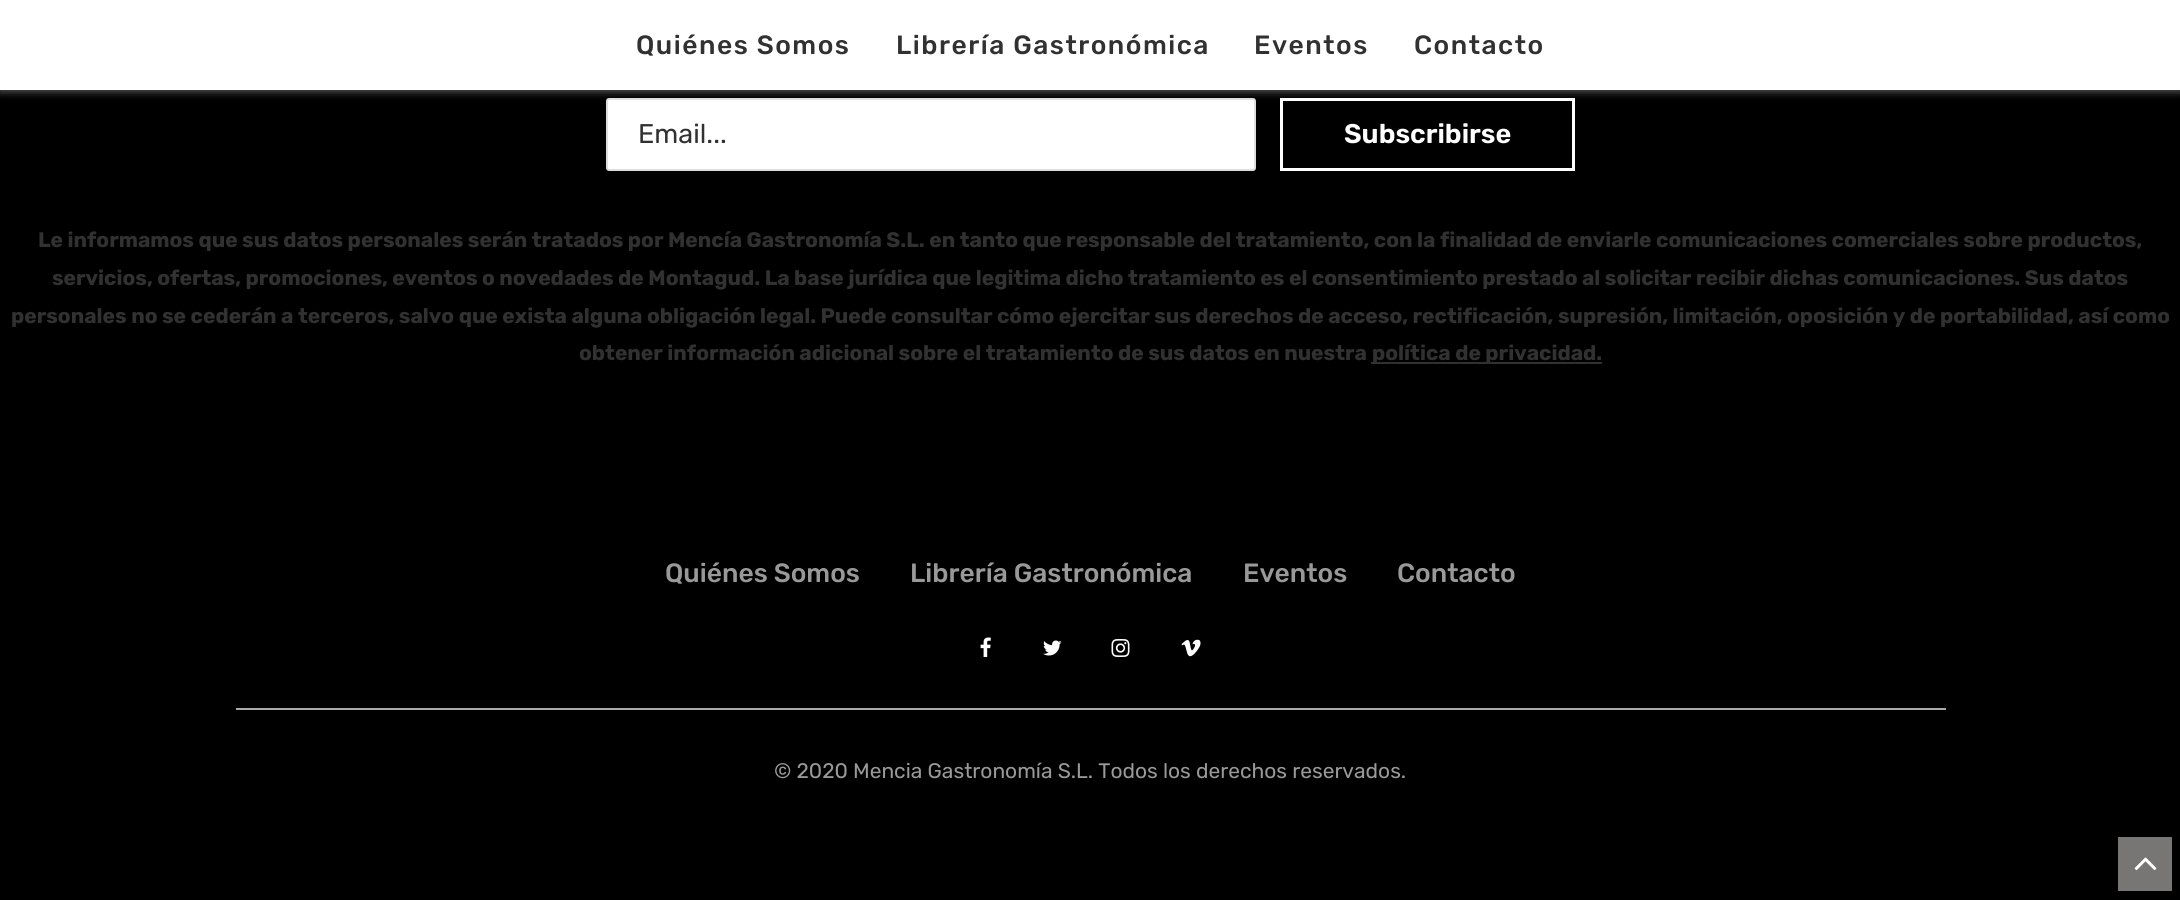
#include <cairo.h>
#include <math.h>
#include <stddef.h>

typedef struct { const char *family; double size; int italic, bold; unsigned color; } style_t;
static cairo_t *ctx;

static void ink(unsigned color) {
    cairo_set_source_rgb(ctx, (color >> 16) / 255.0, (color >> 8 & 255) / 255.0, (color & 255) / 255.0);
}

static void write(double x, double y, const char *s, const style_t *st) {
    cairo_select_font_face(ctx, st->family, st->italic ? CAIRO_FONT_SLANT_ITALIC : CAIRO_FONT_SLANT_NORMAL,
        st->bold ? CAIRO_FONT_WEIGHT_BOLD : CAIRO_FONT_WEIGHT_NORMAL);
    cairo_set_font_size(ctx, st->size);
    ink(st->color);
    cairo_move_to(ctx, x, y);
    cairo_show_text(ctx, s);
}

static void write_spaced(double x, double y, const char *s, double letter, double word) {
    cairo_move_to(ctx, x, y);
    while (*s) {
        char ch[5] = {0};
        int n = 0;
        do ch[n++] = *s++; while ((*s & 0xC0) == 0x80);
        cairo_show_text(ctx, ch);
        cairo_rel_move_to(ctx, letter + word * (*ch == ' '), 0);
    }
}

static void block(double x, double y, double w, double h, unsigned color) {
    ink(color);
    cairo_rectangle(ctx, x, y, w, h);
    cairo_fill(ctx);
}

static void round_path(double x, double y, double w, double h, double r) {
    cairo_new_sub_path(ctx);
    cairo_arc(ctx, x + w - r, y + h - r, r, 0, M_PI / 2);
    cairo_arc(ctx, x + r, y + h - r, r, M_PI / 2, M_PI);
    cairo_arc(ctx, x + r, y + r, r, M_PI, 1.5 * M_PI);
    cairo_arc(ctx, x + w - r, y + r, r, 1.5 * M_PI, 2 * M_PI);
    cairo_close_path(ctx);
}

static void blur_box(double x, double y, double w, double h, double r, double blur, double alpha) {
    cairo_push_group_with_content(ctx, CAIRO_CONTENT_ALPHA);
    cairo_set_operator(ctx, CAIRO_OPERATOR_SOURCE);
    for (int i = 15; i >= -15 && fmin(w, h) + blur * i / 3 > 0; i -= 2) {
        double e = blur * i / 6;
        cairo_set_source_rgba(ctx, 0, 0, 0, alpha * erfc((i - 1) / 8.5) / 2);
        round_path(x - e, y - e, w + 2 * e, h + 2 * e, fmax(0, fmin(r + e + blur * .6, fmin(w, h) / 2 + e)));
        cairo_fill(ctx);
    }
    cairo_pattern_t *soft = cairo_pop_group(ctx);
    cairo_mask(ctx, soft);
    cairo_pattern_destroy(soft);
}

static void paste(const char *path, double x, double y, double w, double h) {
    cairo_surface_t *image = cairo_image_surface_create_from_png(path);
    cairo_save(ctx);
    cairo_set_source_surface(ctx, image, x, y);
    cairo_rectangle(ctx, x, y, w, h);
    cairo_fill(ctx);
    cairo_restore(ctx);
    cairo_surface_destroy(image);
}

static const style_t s1 = {"Rubik", 27, 0, 0, 0x313131};
static const style_t s2 = {"Rubik SemiBold", 27, 0, 0, 0xffffff};
static const style_t s3 = {"Rubik", 21, 0, 1, 0x313131};
static const style_t s4 = {"Rubik Medium", 26.4, 0, 0, 0x999999};
static const style_t s5 = {"Rubik", 21, 0, 0, 0x999999};

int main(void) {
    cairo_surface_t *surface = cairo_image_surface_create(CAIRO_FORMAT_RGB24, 2180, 900);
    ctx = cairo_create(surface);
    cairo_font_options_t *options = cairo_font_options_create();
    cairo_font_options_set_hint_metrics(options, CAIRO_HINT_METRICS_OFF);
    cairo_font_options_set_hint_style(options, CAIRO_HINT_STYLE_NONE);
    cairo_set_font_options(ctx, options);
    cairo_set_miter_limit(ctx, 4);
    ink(0x000000);
    cairo_paint(ctx);
    ink(0xffffff);
    round_path(607, 99, 648, 71, 2);
    cairo_fill_preserve(ctx);
    ink(0xdedede);
    cairo_stroke(ctx);
    cairo_rectangle(ctx, 1281.5, 99.5, 292, 70);
    ink(0xffffff);
    cairo_set_line_width(ctx, 3);
    cairo_stroke(ctx);
    ink(0xbebebe);
    blur_box(0, 2, 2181, 90, 0, 4, 0.46);
    block(0, 0, 2180, 90, 0xffffff);
    cairo_select_font_face(ctx, "Rubik Medium", CAIRO_FONT_SLANT_NORMAL, CAIRO_FONT_WEIGHT_NORMAL);
    cairo_set_font_size(ctx, 26.4);
    ink(0x313131);
    write_spaced(636, 54, "Quiénes Somos", 1.5, 0);
    write_spaced(896, 54, "Librería Gastronómica", 1.5, 0);
    write_spaced(1254, 54, "Eventos", 1.5, 0);
    write_spaced(1414, 54, "Contacto", 1.5, 0);
    write(638, 143, "Email...", &s1);
    write(1344, 143, "Subscribirse", &s2);
    write(38, 247, "Le informamos que sus datos personales serán tratados por Mencía Gastronomía S.L. en tanto que responsable del tratamiento, con la finalidad de enviarle comunicaciones comerciales sobre productos,", &s3);
    write(52, 285, "servicios, ofertas, promociones, eventos o novedades de Montagud. La base jurídica que legitima dicho tratamiento es el consentimiento prestado al solicitar recibir dichas comunicaciones. Sus datos", &s3);
    write(11, 323, "personales no se cederán a terceros, salvo que exista alguna obligación legal. Puede consultar cómo ejercitar sus derechos de acceso, rectificación, supresión, limitación, oposición y de portabilidad, así como", &s3);
    write(579, 360, "obtener información adicional sobre el tratamiento de sus datos en nuestra", &s3);
    block(1371, 362, 231, 2, 0x313131);
    write(1372, 360, "política de privacidad.", &s3);
    write(665, 582, "Quiénes Somos", &s4);
    write(910, 582, "Librería Gastronómica", &s4);
    write(1243, 582, "Eventos", &s4);
    write(1397, 582, "Contacto", &s4);
    block(236, 708, 1710, 2, 0xaaaaaa);
    paste("pic1.png", 980, 637, 11, 20);
    paste("pic2.png", 1043, 640, 19, 16);
    paste("pic3.png", 1111, 639, 19, 18);
    paste("pic4.png", 1181, 639, 20, 18);
    write(774, 778, "© 2020 Mencia Gastronomía S.L. Todos los derechos reservados.", &s5);
    block(2118, 837, 54, 54, 0x777675);
    paste("pic5.png", 2134, 857, 23, 14);
    cairo_surface_write_to_png(surface, "screenshot.png");
    cairo_font_options_destroy(options);
    cairo_destroy(ctx);
    cairo_surface_destroy(surface);
    return 0;
}
